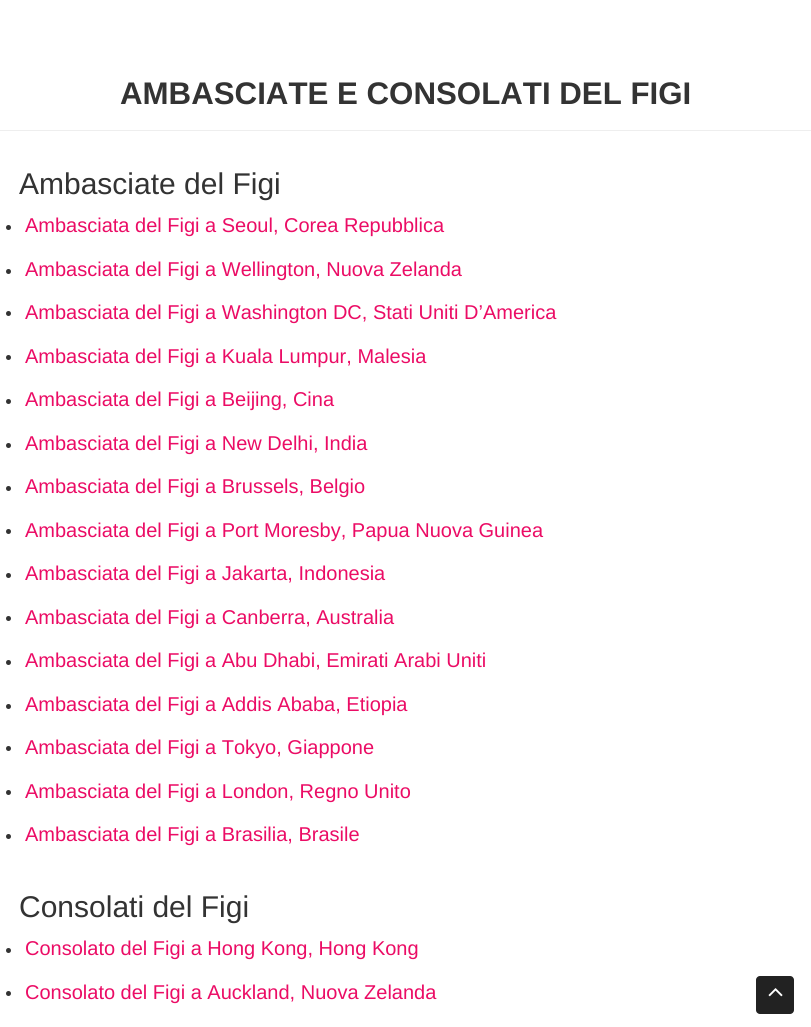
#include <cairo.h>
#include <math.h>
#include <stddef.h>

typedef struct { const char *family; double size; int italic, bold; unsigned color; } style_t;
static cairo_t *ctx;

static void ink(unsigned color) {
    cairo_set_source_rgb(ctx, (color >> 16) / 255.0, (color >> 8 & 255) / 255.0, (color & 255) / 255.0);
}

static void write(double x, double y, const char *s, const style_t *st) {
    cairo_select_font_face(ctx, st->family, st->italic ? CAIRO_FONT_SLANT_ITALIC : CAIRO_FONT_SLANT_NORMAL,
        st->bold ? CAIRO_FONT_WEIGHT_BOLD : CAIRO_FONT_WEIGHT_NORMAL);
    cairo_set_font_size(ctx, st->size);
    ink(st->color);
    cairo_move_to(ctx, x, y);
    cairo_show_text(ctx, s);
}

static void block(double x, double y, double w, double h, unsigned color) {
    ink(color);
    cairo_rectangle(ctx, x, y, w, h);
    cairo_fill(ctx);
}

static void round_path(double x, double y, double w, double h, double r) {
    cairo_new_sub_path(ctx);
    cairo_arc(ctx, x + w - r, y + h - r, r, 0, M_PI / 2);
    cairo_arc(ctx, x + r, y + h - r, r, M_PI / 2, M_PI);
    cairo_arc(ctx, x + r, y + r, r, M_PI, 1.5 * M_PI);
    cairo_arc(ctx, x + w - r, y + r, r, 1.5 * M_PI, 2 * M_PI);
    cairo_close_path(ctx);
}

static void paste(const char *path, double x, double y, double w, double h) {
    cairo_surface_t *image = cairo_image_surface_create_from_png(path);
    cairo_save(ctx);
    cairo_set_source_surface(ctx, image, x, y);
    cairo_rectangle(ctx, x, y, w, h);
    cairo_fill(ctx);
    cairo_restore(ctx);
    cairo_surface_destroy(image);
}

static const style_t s1 = {"Liberation Sans", 31.25, 0, 1, 0x333333};
static const style_t s2 = {"Liberation Sans", 30, 0, 0, 0x333333};
static const style_t s3 = {"Liberation Sans", 20, 0, 0, 0xeb0c65};

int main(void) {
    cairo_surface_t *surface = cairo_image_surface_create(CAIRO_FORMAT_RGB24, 811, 1027);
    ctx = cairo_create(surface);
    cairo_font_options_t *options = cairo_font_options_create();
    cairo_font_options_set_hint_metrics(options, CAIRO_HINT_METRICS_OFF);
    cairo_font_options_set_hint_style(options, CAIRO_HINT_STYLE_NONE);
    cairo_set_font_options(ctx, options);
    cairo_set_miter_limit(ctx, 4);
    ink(0xffffff);
    cairo_paint(ctx);
    block(0, 130, 811, 1, 0xeeeeee);
    write(120, 104, "AMBASCIATE E CONSOLATI DEL FIGI", &s1);
    write(19, 194, "Ambasciate del Figi", &s2);
    cairo_new_path(ctx);
    cairo_arc(ctx, 8.5, 227.5, 2.5, 0, 2 * M_PI);
    cairo_fill(ctx);
    write(25, 232, "Ambasciata del Figi a Seoul, Corea Repubblica", &s3);
    ink(0x333333);
    cairo_new_path(ctx);
    cairo_arc(ctx, 8.5, 271.5, 2.5, 0, 2 * M_PI);
    cairo_fill(ctx);
    write(25, 276, "Ambasciata del Figi a Wellington, Nuova Zelanda", &s3);
    ink(0x333333);
    cairo_new_path(ctx);
    cairo_arc(ctx, 8.5, 313.5, 2.5, 0, 2 * M_PI);
    cairo_fill(ctx);
    write(25, 319, "Ambasciata del Figi a Washington DC, Stati Uniti D’America", &s3);
    ink(0x333333);
    cairo_new_path(ctx);
    cairo_arc(ctx, 8.5, 357.5, 2.5, 0, 2 * M_PI);
    cairo_fill(ctx);
    write(25, 363, "Ambasciata del Figi a Kuala Lumpur, Malesia", &s3);
    ink(0x333333);
    cairo_new_path(ctx);
    cairo_arc(ctx, 8.5, 401.5, 2.5, 0, 2 * M_PI);
    cairo_fill(ctx);
    write(25, 406, "Ambasciata del Figi a Beijing, Cina", &s3);
    ink(0x333333);
    cairo_new_path(ctx);
    cairo_arc(ctx, 8.5, 445.5, 2.5, 0, 2 * M_PI);
    cairo_fill(ctx);
    write(25, 450, "Ambasciata del Figi a New Delhi, India", &s3);
    ink(0x333333);
    cairo_new_path(ctx);
    cairo_arc(ctx, 8.5, 488.5, 2.5, 0, 2 * M_PI);
    cairo_fill(ctx);
    write(25, 493, "Ambasciata del Figi a Brussels, Belgio", &s3);
    ink(0x333333);
    cairo_new_path(ctx);
    cairo_arc(ctx, 8.5, 531.5, 2.5, 0, 2 * M_PI);
    cairo_fill(ctx);
    write(25, 537, "Ambasciata del Figi a Port Moresby, Papua Nuova Guinea", &s3);
    ink(0x333333);
    cairo_new_path(ctx);
    cairo_arc(ctx, 8.5, 575.5, 2.5, 0, 2 * M_PI);
    cairo_fill(ctx);
    write(25, 580, "Ambasciata del Figi a Jakarta, Indonesia", &s3);
    ink(0x333333);
    cairo_new_path(ctx);
    cairo_arc(ctx, 8.5, 618.5, 2.5, 0, 2 * M_PI);
    cairo_fill(ctx);
    write(25, 624, "Ambasciata del Figi a Canberra, Australia", &s3);
    ink(0x333333);
    cairo_new_path(ctx);
    cairo_arc(ctx, 8.5, 662.5, 2.5, 0, 2 * M_PI);
    cairo_fill(ctx);
    write(25, 667, "Ambasciata del Figi a Abu Dhabi, Emirati Arabi Uniti", &s3);
    ink(0x333333);
    cairo_new_path(ctx);
    cairo_arc(ctx, 8.5, 706.5, 2.5, 0, 2 * M_PI);
    cairo_fill(ctx);
    write(25, 711, "Ambasciata del Figi a Addis Ababa, Etiopia", &s3);
    ink(0x333333);
    cairo_new_path(ctx);
    cairo_arc(ctx, 8.5, 748.5, 2.5, 0, 2 * M_PI);
    cairo_fill(ctx);
    write(25, 754, "Ambasciata del Figi a Tokyo, Giappone", &s3);
    ink(0x333333);
    cairo_new_path(ctx);
    cairo_arc(ctx, 8.5, 792.5, 2.5, 0, 2 * M_PI);
    cairo_fill(ctx);
    write(25, 798, "Ambasciata del Figi a London, Regno Unito", &s3);
    ink(0x333333);
    cairo_new_path(ctx);
    cairo_arc(ctx, 8.5, 836.5, 2.5, 0, 2 * M_PI);
    cairo_fill(ctx);
    write(25, 841, "Ambasciata del Figi a Brasilia, Brasile", &s3);
    write(19, 917, "Consolati del Figi", &s2);
    cairo_new_path(ctx);
    cairo_arc(ctx, 8.5, 950.5, 2.5, 0, 2 * M_PI);
    cairo_fill(ctx);
    write(25, 955, "Consolato del Figi a Hong Kong, Hong Kong", &s3);
    ink(0x333333);
    cairo_new_path(ctx);
    cairo_arc(ctx, 8.5, 993.5, 2.5, 0, 2 * M_PI);
    cairo_fill(ctx);
    write(25, 999, "Consolato del Figi a Auckland, Nuova Zelanda", &s3);
    ink(0x222222);
    round_path(756, 976, 38, 38, 4);
    cairo_fill(ctx);
    paste("pic1.png", 768, 988, 15, 9);
    cairo_surface_write_to_png(surface, "screenshot.png");
    cairo_font_options_destroy(options);
    cairo_destroy(ctx);
    cairo_surface_destroy(surface);
    return 0;
}
